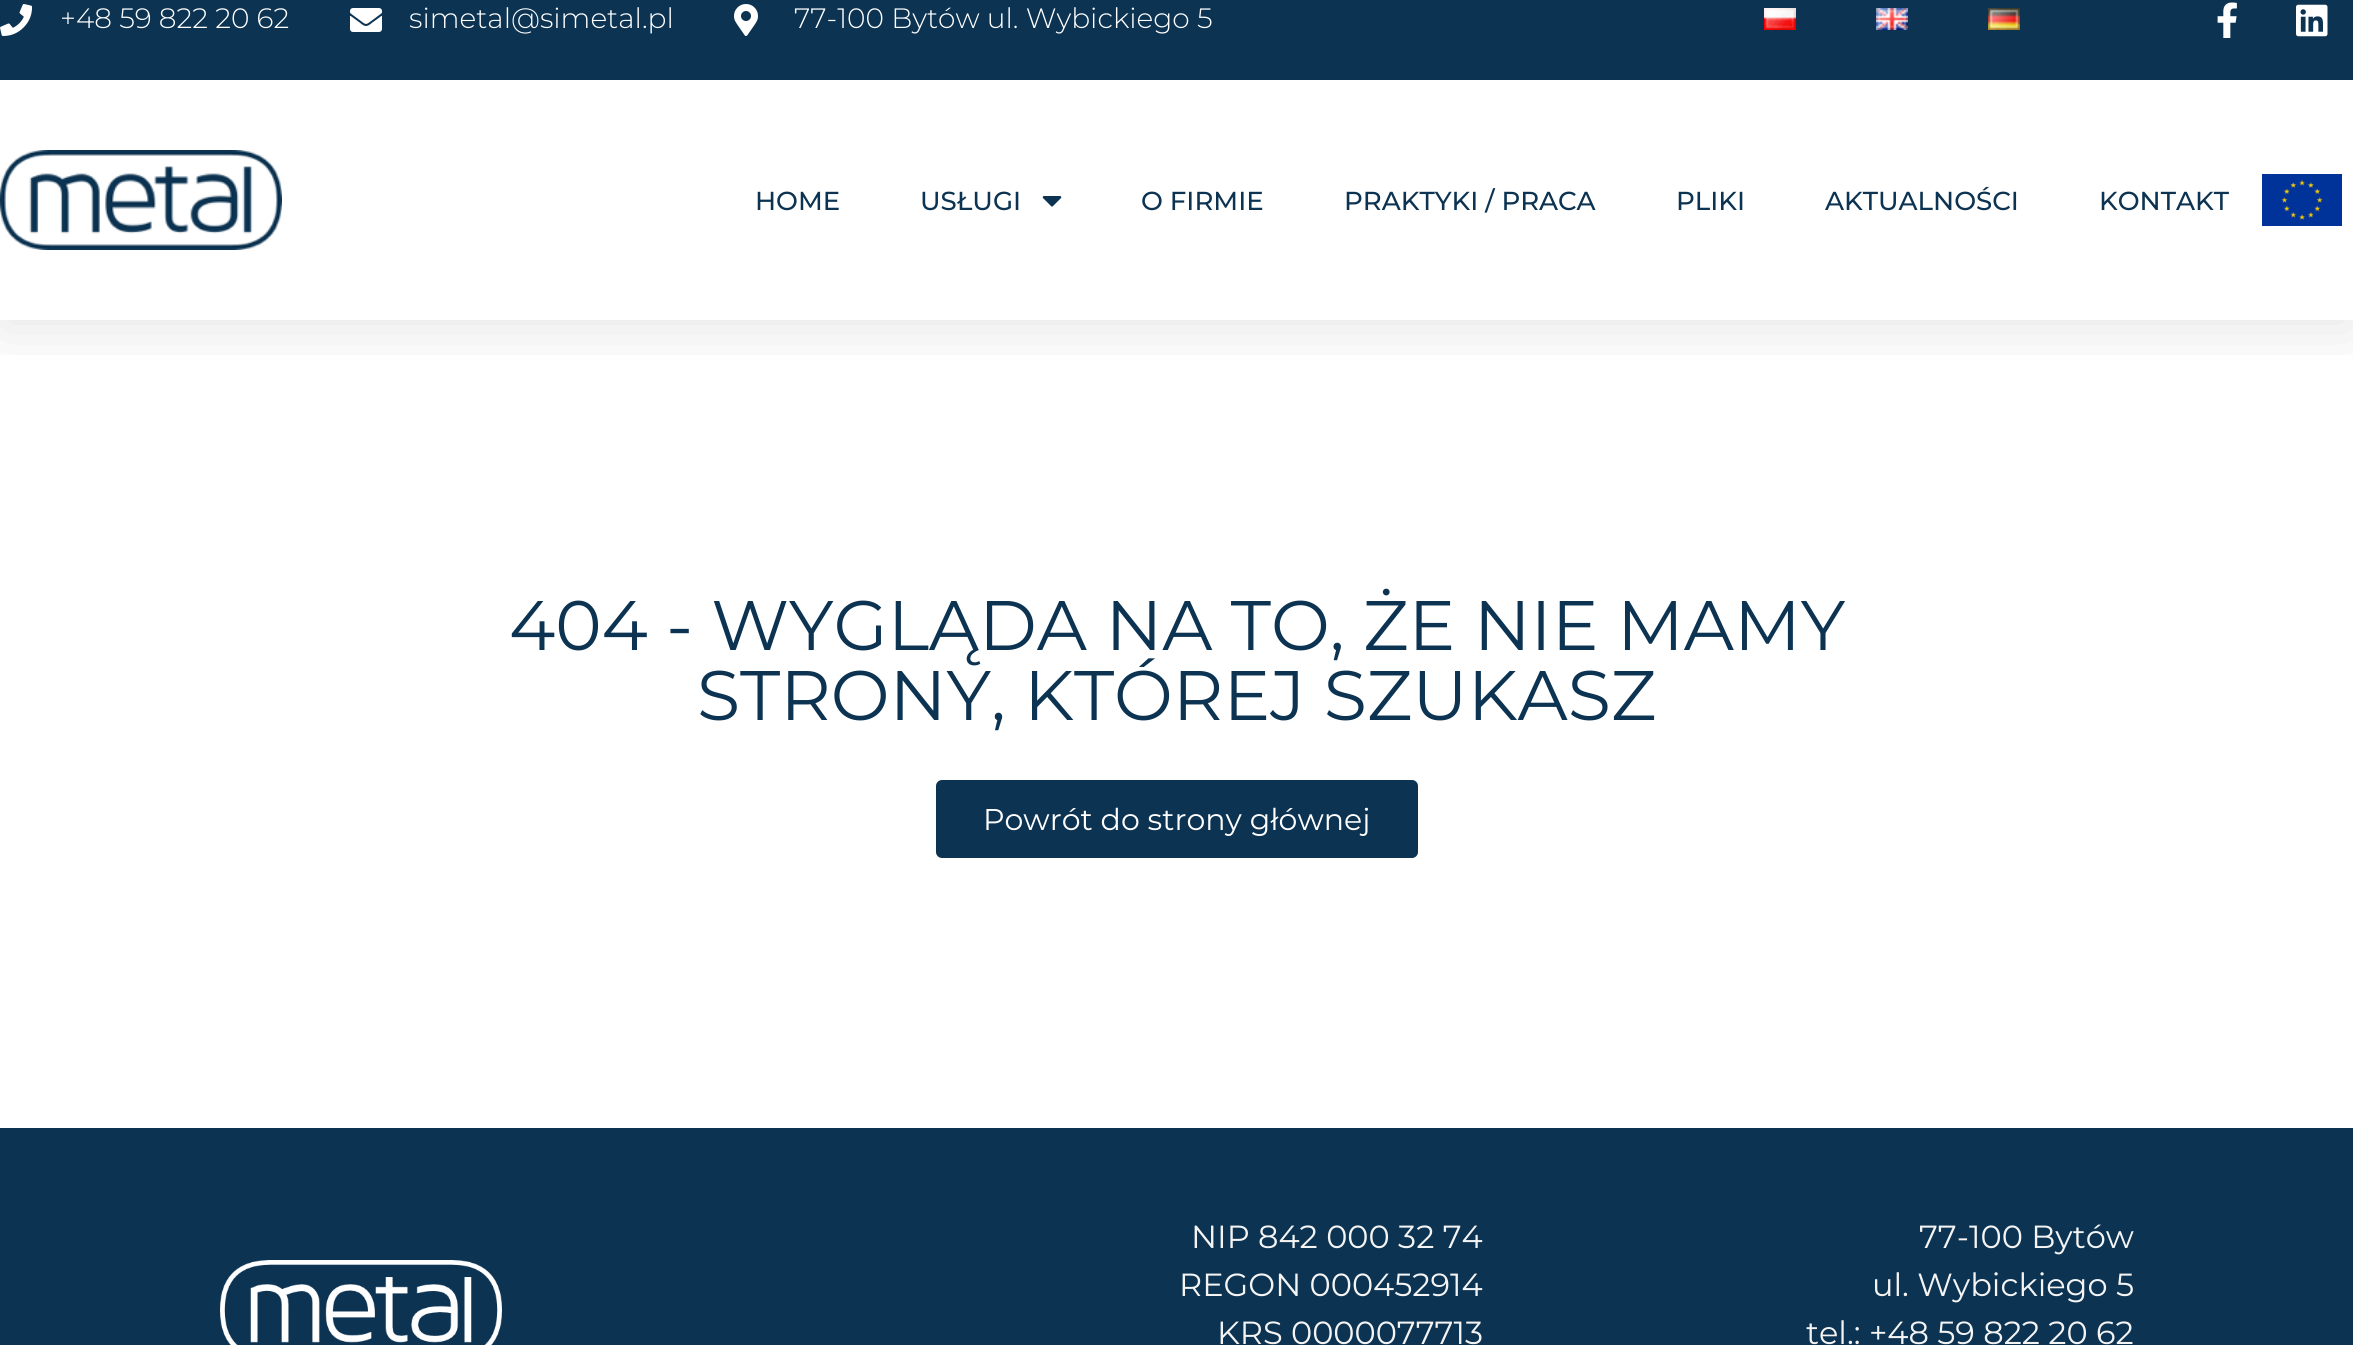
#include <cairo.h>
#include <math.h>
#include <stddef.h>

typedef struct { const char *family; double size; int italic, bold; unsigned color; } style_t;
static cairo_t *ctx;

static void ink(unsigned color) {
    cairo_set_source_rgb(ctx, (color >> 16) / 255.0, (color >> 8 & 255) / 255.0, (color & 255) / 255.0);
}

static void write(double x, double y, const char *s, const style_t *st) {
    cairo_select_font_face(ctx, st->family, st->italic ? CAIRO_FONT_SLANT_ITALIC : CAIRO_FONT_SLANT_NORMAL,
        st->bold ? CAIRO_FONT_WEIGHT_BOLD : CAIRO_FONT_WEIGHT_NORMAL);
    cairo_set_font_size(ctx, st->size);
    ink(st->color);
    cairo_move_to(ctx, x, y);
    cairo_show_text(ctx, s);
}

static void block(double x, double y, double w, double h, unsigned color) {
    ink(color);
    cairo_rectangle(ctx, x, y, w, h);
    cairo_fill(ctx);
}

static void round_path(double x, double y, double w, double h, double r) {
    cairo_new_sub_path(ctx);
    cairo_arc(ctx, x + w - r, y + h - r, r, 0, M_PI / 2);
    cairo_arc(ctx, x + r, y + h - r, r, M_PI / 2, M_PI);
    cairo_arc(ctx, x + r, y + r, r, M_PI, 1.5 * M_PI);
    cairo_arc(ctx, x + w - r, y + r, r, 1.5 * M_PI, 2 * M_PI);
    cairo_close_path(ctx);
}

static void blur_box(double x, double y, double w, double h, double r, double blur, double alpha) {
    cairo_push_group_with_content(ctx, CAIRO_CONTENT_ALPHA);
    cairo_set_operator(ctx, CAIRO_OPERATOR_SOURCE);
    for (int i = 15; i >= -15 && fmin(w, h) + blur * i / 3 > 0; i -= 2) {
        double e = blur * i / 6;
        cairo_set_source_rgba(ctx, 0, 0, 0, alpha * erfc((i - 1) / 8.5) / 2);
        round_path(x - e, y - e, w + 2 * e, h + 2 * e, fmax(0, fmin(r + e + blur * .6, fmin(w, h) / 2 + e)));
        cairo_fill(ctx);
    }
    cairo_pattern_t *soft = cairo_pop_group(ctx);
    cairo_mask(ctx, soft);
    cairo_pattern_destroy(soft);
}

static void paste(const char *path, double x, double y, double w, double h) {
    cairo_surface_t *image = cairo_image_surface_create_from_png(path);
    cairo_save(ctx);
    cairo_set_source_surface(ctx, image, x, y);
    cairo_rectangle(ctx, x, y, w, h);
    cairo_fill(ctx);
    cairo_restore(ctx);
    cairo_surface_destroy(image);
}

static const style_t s1 = {"Montserrat Light", 28, 0, 0, 0xffffff};
static const style_t s2 = {"Montserrat Medium", 26, 0, 0, 0x0c3351};
static const style_t s3 = {"Montserrat", 70, 0, 0, 0x0c3351};
static const style_t s4 = {"Montserrat", 30, 0, 0, 0xffffff};
static const style_t s5 = {"Montserrat", 32, 0, 0, 0xf4f4f4};

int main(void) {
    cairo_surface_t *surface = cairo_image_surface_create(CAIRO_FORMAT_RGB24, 2353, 1345);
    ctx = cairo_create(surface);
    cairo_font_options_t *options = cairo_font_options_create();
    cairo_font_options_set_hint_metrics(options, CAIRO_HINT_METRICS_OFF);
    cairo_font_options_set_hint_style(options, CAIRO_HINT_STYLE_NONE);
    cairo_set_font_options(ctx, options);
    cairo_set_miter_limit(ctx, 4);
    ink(0xffffff);
    cairo_paint(ctx);
    cairo_save(ctx);
    cairo_rectangle(ctx, 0, 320, 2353, 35);
    cairo_clip(ctx);
    ink(0x000000);
    blur_box(0, -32, 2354, 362, 0, 30, 0.1);
    cairo_restore(ctx);
    block(0, 0, 2353, 80, 0x0c3351);
    paste("pic1.png", 0, 4, 33, 32);
    write(60, 28, "+48 59 822 20 62", &s1);
    paste("pic2.png", 350, 8, 32, 24);
    write(409, 28, "simetal@simetal.pl", &s1);
    paste("pic3.png", 734, 4, 24, 32);
    write(794, 28, "77-100 Bytów ul. Wybickiego 5", &s1);
    paste("pic4.png", 1764, 8, 32, 22);
    paste("pic5.png", 1876, 8, 32, 22);
    paste("pic6.png", 1988, 8, 32, 22);
    paste("pic7.png", 2217, 2, 20, 36);
    paste("pic8.png", 2296, 4, 32, 33);
    paste("pic9.png", 0, 150, 282, 100);
    write(755, 210, "HOME", &s2);
    write(920, 210, "USŁUGI", &s2);
    paste("pic10.png", 1042, 196, 20, 11);
    write(1141, 210, "O FIRMIE", &s2);
    write(1344, 210, "PRAKTYKI / PRACA", &s2);
    write(1676, 210, "PLIKI", &s2);
    write(1825, 210, "AKTUALNOŚCI", &s2);
    write(2099, 210, "KONTAKT", &s2);
    paste("pic11.png", 2262, 174, 80, 52);
    write(509, 650, "404 - WYGLĄDA NA TO, ŻE NIE MAMY", &s3);
    write(697, 720, "STRONY, KTÓREJ SZUKASZ", &s3);
    round_path(936, 780, 482, 78, 6);
    cairo_fill(ctx);
    write(983, 830, "Powrót do strony głównej", &s4);
    block(0, 1128, 2353, 217, 0x0c3351);
    paste("pic12.png", 220, 1260, 282, 85);
    write(1191, 1248, "NIP 842 000 32 74", &s5);
    write(1179, 1296, "REGON 000452914", &s5);
    write(1217, 1344, "KRS 0000077713", &s5);
    write(1919, 1248, "77-100 Bytów", &s5);
    write(1872, 1296, "ul. Wybickiego 5", &s5);
    write(1806, 1344, "tel.: +48 59 822 20 62", &s5);
    cairo_surface_write_to_png(surface, "screenshot.png");
    cairo_font_options_destroy(options);
    cairo_destroy(ctx);
    cairo_surface_destroy(surface);
    return 0;
}
